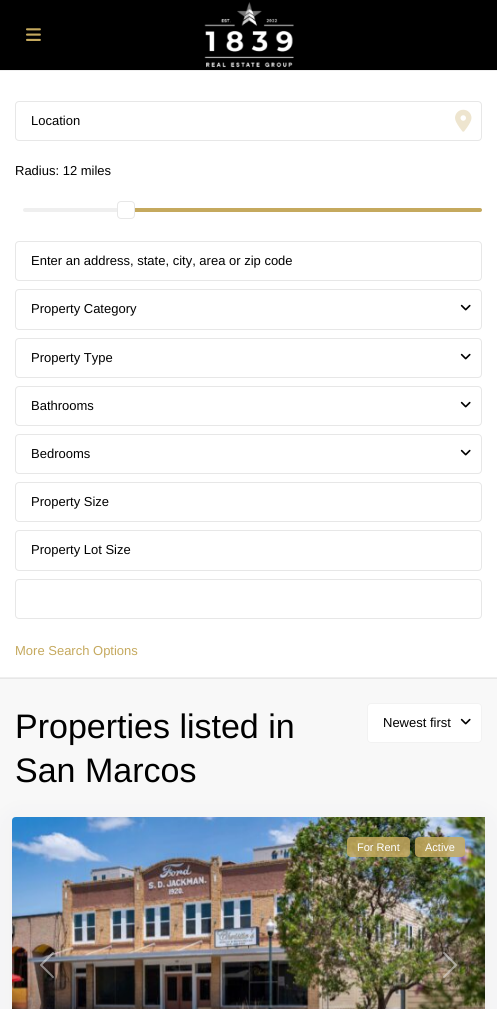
#include <cairo.h>
#include <math.h>
#include <stddef.h>

typedef struct { const char *family; double size; int italic, bold; unsigned color; } style_t;
static cairo_t *ctx;

static void ink(unsigned color) {
    cairo_set_source_rgb(ctx, (color >> 16) / 255.0, (color >> 8 & 255) / 255.0, (color & 255) / 255.0);
}

static void write(double x, double y, const char *s, const style_t *st) {
    cairo_select_font_face(ctx, st->family, st->italic ? CAIRO_FONT_SLANT_ITALIC : CAIRO_FONT_SLANT_NORMAL,
        st->bold ? CAIRO_FONT_WEIGHT_BOLD : CAIRO_FONT_WEIGHT_NORMAL);
    cairo_set_font_size(ctx, st->size);
    ink(st->color);
    cairo_move_to(ctx, x, y);
    cairo_show_text(ctx, s);
}

static void block(double x, double y, double w, double h, unsigned color) {
    ink(color);
    cairo_rectangle(ctx, x, y, w, h);
    cairo_fill(ctx);
}

static void round_path(double x, double y, double w, double h, double r) {
    cairo_new_sub_path(ctx);
    cairo_arc(ctx, x + w - r, y + h - r, r, 0, M_PI / 2);
    cairo_arc(ctx, x + r, y + h - r, r, M_PI / 2, M_PI);
    cairo_arc(ctx, x + r, y + r, r, M_PI, 1.5 * M_PI);
    cairo_arc(ctx, x + w - r, y + r, r, 1.5 * M_PI, 2 * M_PI);
    cairo_close_path(ctx);
}

static void blur_box(double x, double y, double w, double h, double r, double blur, double alpha) {
    cairo_push_group_with_content(ctx, CAIRO_CONTENT_ALPHA);
    cairo_set_operator(ctx, CAIRO_OPERATOR_SOURCE);
    for (int i = 15; i >= -15 && fmin(w, h) + blur * i / 3 > 0; i -= 2) {
        double e = blur * i / 6;
        cairo_set_source_rgba(ctx, 0, 0, 0, alpha * erfc((i - 1) / 8.5) / 2);
        round_path(x - e, y - e, w + 2 * e, h + 2 * e, fmax(0, fmin(r + e + blur * .6, fmin(w, h) / 2 + e)));
        cairo_fill(ctx);
    }
    cairo_pattern_t *soft = cairo_pop_group(ctx);
    cairo_mask(ctx, soft);
    cairo_pattern_destroy(soft);
}

static void paste(const char *path, double x, double y, double w, double h) {
    cairo_surface_t *image = cairo_image_surface_create_from_png(path);
    cairo_save(ctx);
    cairo_set_source_surface(ctx, image, x, y);
    cairo_rectangle(ctx, x, y, w, h);
    cairo_fill(ctx);
    cairo_restore(ctx);
    cairo_surface_destroy(image);
}

static const style_t s1 = {"Liberation Sans", 13, 0, 0, 0x000000};
static const style_t s2 = {"Liberation Sans", 13, 0, 0, 0xc5a95e};
static const style_t s3 = {"Liberation Sans", 34, 0, 0, 0x000000};
static const style_t s4 = {"Liberation Sans", 11, 0, 0, 0xffffff};

int main(void) {
    cairo_surface_t *surface = cairo_image_surface_create(CAIRO_FORMAT_RGB24, 497, 1009);
    ctx = cairo_create(surface);
    cairo_font_options_t *options = cairo_font_options_create();
    cairo_font_options_set_hint_metrics(options, CAIRO_HINT_METRICS_OFF);
    cairo_font_options_set_hint_style(options, CAIRO_HINT_STYLE_NONE);
    cairo_set_font_options(ctx, options);
    cairo_set_miter_limit(ctx, 4);
    cairo_pattern_t *gradient;
    ink(0xf8f8f8);
    cairo_paint(ctx);
    block(0, 0, 497, 70, 0x000000);
    paste("pic1.png", 26, 28, 15, 13);
    paste("pic2.png", 204, 2, 90, 66);
    block(0, 678, 497, 1, 0xe7e7e7);
    block(0, 71, 497, 606, 0xffffff);
    block(0, 70, 497, 1, 0xefefef);
    block(0, 677, 497, 1, 0xefefef);
    round_path(15.5, 101.5, 466, 39, 3.5);
    ink(0xe7e7e7);
    cairo_set_line_width(ctx, 1);
    cairo_stroke(ctx);
    write(31, 125, "Location", &s1);
    paste("pic3.png", 455, 109, 17, 23);
    write(15, 175, "Radius: 12 miles", &s1);
    ink(0xefefef);
    round_path(23, 208, 459, 4, 2);
    cairo_fill(ctx);
    ink(0xc5a95e);
    round_path(126, 208, 356, 4, 2);
    cairo_fill(ctx);
    ink(0xffffff);
    round_path(117.5, 201.5, 17, 17, 3.5);
    cairo_fill_preserve(ctx);
    ink(0xe7e7e7);
    cairo_stroke(ctx);
    round_path(15.5, 241.5, 466, 39, 3.5);
    cairo_stroke(ctx);
    write(31, 265, "Enter an address, state, city, area or zip code", &s1);
    round_path(15.5, 289.5, 466, 40, 3.5);
    ink(0xe7e7e7);
    cairo_stroke(ctx);
    write(31, 313, "Property Category", &s1);
    paste("pic4.png", 460, 304, 11, 7);
    round_path(15.5, 338.5, 466, 39, 3.5);
    ink(0xe7e7e7);
    cairo_stroke(ctx);
    write(31, 362, "Property Type", &s1);
    paste("pic4.png", 460, 353, 11, 7);
    round_path(15.5, 386.5, 466, 39, 3.5);
    ink(0xe7e7e7);
    cairo_stroke(ctx);
    write(31, 410, "Bathrooms", &s1);
    paste("pic4.png", 460, 401, 11, 7);
    round_path(15.5, 434.5, 466, 39, 3.5);
    ink(0xe7e7e7);
    cairo_stroke(ctx);
    write(31, 458, "Bedrooms", &s1);
    paste("pic4.png", 460, 449, 11, 7);
    round_path(15.5, 482.5, 466, 39, 3.5);
    ink(0xe7e7e7);
    cairo_stroke(ctx);
    write(31, 506, "Property Size", &s1);
    round_path(15.5, 530.5, 466, 40, 3.5);
    ink(0xe7e7e7);
    cairo_stroke(ctx);
    write(31, 554, "Property Lot Size", &s1);
    round_path(15.5, 579.5, 466, 39, 3.5);
    ink(0xe7e7e7);
    cairo_stroke(ctx);
    write(15, 655, "More Search Options", &s2);
    ink(0xffffff);
    round_path(367.5, 703.5, 114, 39, 3.5);
    cairo_fill_preserve(ctx);
    ink(0xf2f2f2);
    cairo_stroke(ctx);
    write(383, 727, "Newest first", &s1);
    paste("pic4.png", 460, 718, 11, 7);
    write(15, 738, "Properties listed in", &s3);
    write(15, 782, "San Marcos", &s3);
    ink(0x262a4c);
    blur_box(12, 822, 473, 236, 4, 15, 0.05);
    paste("pic5.png", 12, 817, 473, 192);
    paste("pic6.png", 40, 952, 14, 26);
    paste("pic7.png", 443, 952, 14, 26);
    cairo_set_source_rgba(ctx, 0.773, 0.663, 0.369, 0.85);
    round_path(347, 837, 63, 20, 4);
    cairo_fill(ctx);
    write(357, 851, "For Rent", &s4);
    cairo_save(ctx);
    cairo_set_fill_rule(ctx, CAIRO_FILL_RULE_EVEN_ODD);
    cairo_new_path(ctx);
    cairo_move_to(ctx, 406, 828);
    cairo_line_to(ctx, 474, 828);
    cairo_line_to(ctx, 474, 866);
    cairo_line_to(ctx, 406, 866);
    cairo_close_path(ctx);
    cairo_move_to(ctx, 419, 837);
    cairo_line_to(ctx, 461, 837);
    cairo_curve_to(ctx, 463, 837, 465, 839, 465, 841);
    cairo_line_to(ctx, 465, 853);
    cairo_curve_to(ctx, 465, 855, 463, 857, 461, 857);
    cairo_line_to(ctx, 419, 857);
    cairo_curve_to(ctx, 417, 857, 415, 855, 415, 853);
    cairo_line_to(ctx, 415, 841);
    cairo_curve_to(ctx, 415, 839, 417, 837, 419, 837);
    cairo_close_path(ctx);
    cairo_clip(ctx);
    ink(0x000000);
    blur_box(415, 837, 50, 20, 4, 2.5, 0.1);
    cairo_restore(ctx);
    cairo_set_source_rgba(ctx, 0.773, 0.663, 0.369, 0.85);
    round_path(415, 837, 50, 20, 4);
    cairo_fill(ctx);
    write(425, 851, "Active", &s4);
    gradient = cairo_pattern_create_linear(249, 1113, 249, 817);
    cairo_pattern_add_color_stop_rgba(gradient, 0, 0, 0, 0, 0.5);
    cairo_pattern_add_color_stop_rgba(gradient, 0.56, 0, 0, 0, 0);
    cairo_set_source(ctx, gradient);
    cairo_pattern_destroy(gradient);
    cairo_rectangle(ctx, 12, 954, 473, 55);
    cairo_fill(ctx);
    cairo_surface_write_to_png(surface, "screenshot.png");
    cairo_font_options_destroy(options);
    cairo_destroy(ctx);
    cairo_surface_destroy(surface);
    return 0;
}
